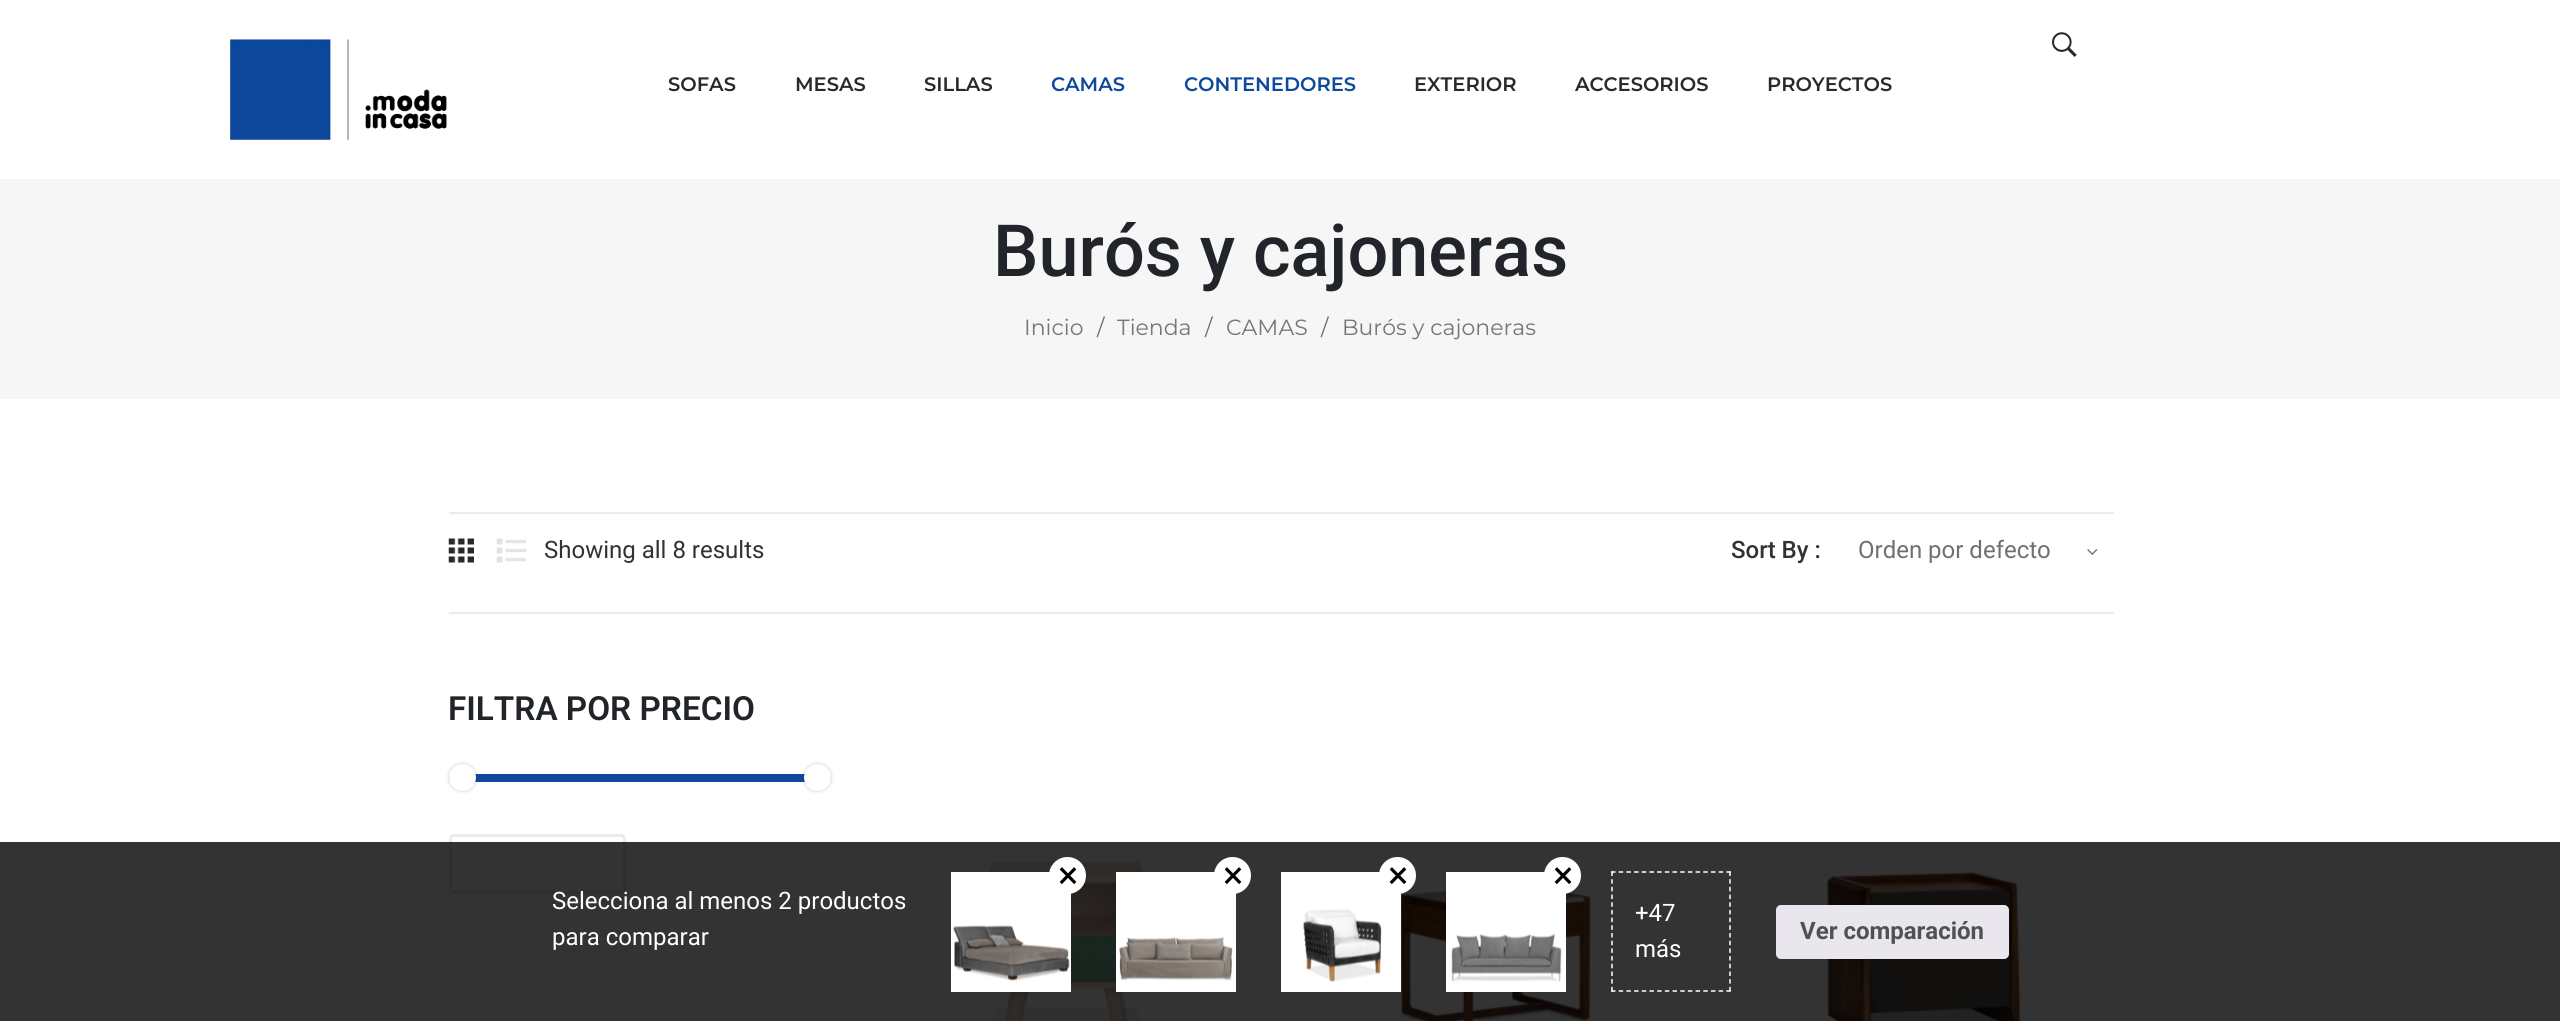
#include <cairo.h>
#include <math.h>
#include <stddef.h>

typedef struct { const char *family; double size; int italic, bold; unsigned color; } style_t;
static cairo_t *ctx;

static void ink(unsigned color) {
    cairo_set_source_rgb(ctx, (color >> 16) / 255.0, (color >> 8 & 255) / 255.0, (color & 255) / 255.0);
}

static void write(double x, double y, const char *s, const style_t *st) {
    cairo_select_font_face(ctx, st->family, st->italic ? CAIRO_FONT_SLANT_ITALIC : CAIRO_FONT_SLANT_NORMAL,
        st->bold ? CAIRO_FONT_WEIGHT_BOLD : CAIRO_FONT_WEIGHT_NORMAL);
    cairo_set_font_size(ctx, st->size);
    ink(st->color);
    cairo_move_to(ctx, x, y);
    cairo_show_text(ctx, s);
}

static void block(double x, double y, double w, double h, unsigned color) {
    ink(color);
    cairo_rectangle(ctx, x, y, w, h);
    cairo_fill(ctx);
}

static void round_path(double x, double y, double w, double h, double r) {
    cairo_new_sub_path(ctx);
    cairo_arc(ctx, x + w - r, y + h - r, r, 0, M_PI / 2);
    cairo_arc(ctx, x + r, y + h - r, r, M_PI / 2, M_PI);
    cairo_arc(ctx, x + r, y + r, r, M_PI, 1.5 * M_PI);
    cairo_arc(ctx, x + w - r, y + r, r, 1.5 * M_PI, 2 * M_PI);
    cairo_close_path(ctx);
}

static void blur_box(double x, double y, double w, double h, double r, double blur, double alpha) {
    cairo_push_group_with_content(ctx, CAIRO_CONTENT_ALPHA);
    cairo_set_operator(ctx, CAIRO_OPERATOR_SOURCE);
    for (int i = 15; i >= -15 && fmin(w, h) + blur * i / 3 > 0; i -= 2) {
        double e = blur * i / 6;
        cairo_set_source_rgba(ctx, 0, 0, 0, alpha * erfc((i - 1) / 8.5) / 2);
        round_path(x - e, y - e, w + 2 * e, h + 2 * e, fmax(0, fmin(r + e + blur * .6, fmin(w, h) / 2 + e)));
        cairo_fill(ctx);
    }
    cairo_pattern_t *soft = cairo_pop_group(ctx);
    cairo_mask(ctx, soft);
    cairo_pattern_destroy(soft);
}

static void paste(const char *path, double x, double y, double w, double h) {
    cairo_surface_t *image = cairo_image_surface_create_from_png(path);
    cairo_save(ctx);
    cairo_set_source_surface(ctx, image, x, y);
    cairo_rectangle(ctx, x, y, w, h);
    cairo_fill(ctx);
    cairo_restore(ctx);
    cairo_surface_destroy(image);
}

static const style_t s1 = {"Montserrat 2 Thin", 19.5, 0, 0, 0x292929};
static const style_t s2 = {"Montserrat 2 Thin", 19.5, 0, 0, 0x0d499c};
static const style_t s3 = {"Roboto Medium", 72, 0, 0, 0x212529};
static const style_t s4 = {"Montserrat Thin", 22, 0, 0, 0x767676};
static const style_t s5 = {"Montserrat Thin", 22, 0, 0, 0x707070};
static const style_t s6 = {"Roboto", 24, 0, 0, 0x323232};
static const style_t s7 = {"Roboto Medium", 24, 0, 0, 0x323232};
static const style_t s8 = {"Roboto", 24, 0, 0, 0x707070};
static const style_t s9 = {"Roboto SemiBold", 33.25, 0, 0, 0x212529};
static const style_t s10 = {"Roboto", 24, 0, 0, 0xffffff};
static const style_t s11 = {"Roboto", 38, 0, 0, 0x000000};
static const style_t s12 = {"Roboto", 24, 0, 1, 0x515151};

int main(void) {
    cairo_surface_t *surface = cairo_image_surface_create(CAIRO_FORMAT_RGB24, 2560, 1021);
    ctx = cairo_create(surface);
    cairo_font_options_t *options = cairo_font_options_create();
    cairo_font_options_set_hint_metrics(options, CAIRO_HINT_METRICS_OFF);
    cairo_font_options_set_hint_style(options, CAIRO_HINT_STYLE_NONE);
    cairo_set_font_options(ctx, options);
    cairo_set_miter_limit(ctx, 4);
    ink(0xffffff);
    cairo_paint(ctx);
    paste("pic1.png", 230, 39, 217, 101);
    write(668, 91, "SOFAS", &s1);
    write(795, 91, "MESAS", &s1);
    write(924, 91, "SILLAS", &s1);
    write(1051, 91, "CAMAS", &s2);
    write(1184, 91, "CONTENEDORES", &s2);
    write(1414, 91, "EXTERIOR", &s1);
    write(1575, 91, "ACCESORIOS", &s1);
    write(1767, 91, "PROYECTOS", &s1);
    paste("pic2.png", 2052, 32, 25, 25);
    block(0, 179, 2560, 220, 0xf6f6f6);
    write(993, 276, "Burós y cajoneras", &s3);
    write(1024, 335, "Inicio", &s4);
    write(1097, 335, "/", &s5);
    write(1117, 335, "Tienda", &s4);
    write(1205, 335, "/", &s5);
    write(1226, 335, "CAMAS", &s4);
    write(1321, 335, "/", &s5);
    write(1342, 335, "Burós y cajoneras", &s4);
    block(449, 512, 1665, 2, 0xebebeb);
    block(449, 612, 1665, 2, 0xebebeb);
    paste("pic3.png", 448, 538, 26, 25);
    paste("pic4.png", 496, 538, 31, 25);
    write(544, 558, "Showing all 8 results", &s6);
    write(1731, 558, "Sort By :", &s7);
    write(1858, 558, "Orden por defecto", &s8);
    paste("pic5.png", 2087, 549, 11, 6);
    write(448, 720, "FILTRA POR PRECIO", &s9);
    ink(0x0d499c);
    round_path(449, 774, 382, 8, 4);
    cairo_fill(ctx);
    ink(0x000000);
    blur_box(449, 764, 27, 27, 13.5, 2, 0.2);
    ink(0xffffff);
    cairo_arc(ctx, 462.5, 777.5, 13.5, 0, 2 * M_PI);
    cairo_fill(ctx);
    ink(0x000000);
    blur_box(804, 764, 27, 27, 13.5, 2, 0.2);
    ink(0xffffff);
    cairo_arc(ctx, 817.5, 777.5, 13.5, 0, 2 * M_PI);
    cairo_fill(ctx);
    round_path(450.5, 835.5, 174, 57, 3.5);
    ink(0xebebeb);
    cairo_set_line_width(ctx, 3);
    cairo_stroke(ctx);
    paste("pic6.png", 985, 861, 161, 160);
    paste("pic7.png", 1400, 884, 191, 137);
    paste("pic8.png", 1826, 872, 195, 149);
    cairo_set_source_rgba(ctx, 0, 0, 0, 0.8);
    cairo_rectangle(ctx, 0, 842, 2560, 179);
    cairo_fill(ctx);
    write(552, 909, "Selecciona al menos 2 productos", &s10);
    write(552, 945, "para comparar", &s10);
    paste("pic9.png", 951, 872, 120, 120);
    cairo_arc(ctx, 1067.5, 875.5, 18.5, 0, 2 * M_PI);
    cairo_fill(ctx);
    write(1058, 888, "×", &s11);
    paste("pic10.png", 1116, 872, 120, 120);
    ink(0xffffff);
    cairo_arc(ctx, 1232.5, 875.5, 18.5, 0, 2 * M_PI);
    cairo_fill(ctx);
    write(1223, 888, "×", &s11);
    paste("pic11.png", 1281, 872, 120, 120);
    ink(0xffffff);
    cairo_arc(ctx, 1397.5, 875.5, 18.5, 0, 2 * M_PI);
    cairo_fill(ctx);
    write(1388, 888, "×", &s11);
    paste("pic12.png", 1446, 872, 120, 120);
    ink(0xffffff);
    cairo_arc(ctx, 1562.5, 875.5, 18.5, 0, 2 * M_PI);
    cairo_fill(ctx);
    write(1553, 888, "×", &s11);
    cairo_new_path(ctx);
    cairo_move_to(ctx, 1611, 872);
    cairo_line_to(ctx, 1731, 872);
    ink(0xffffff);
    cairo_set_line_width(ctx, 1.5);
    cairo_set_dash(ctx, (double[]){4.5, 3.19}, 2, 0);
    cairo_stroke(ctx);
    cairo_new_path(ctx);
    cairo_move_to(ctx, 1730, 871.5);
    cairo_line_to(ctx, 1730, 991.5);
    cairo_stroke(ctx);
    cairo_new_path(ctx);
    cairo_move_to(ctx, 1611, 991);
    cairo_line_to(ctx, 1731, 991);
    cairo_stroke(ctx);
    cairo_new_path(ctx);
    cairo_move_to(ctx, 1612, 871.5);
    cairo_line_to(ctx, 1612, 991.5);
    cairo_stroke(ctx);
    write(1635, 921, "+47", &s10);
    write(1635, 957, "más", &s10);
    ink(0xe9e6ed);
    round_path(1776, 905, 233, 54, 5);
    cairo_fill(ctx);
    write(1800, 939, "Ver comparación", &s12);
    cairo_surface_write_to_png(surface, "screenshot.png");
    cairo_font_options_destroy(options);
    cairo_destroy(ctx);
    cairo_surface_destroy(surface);
    return 0;
}
